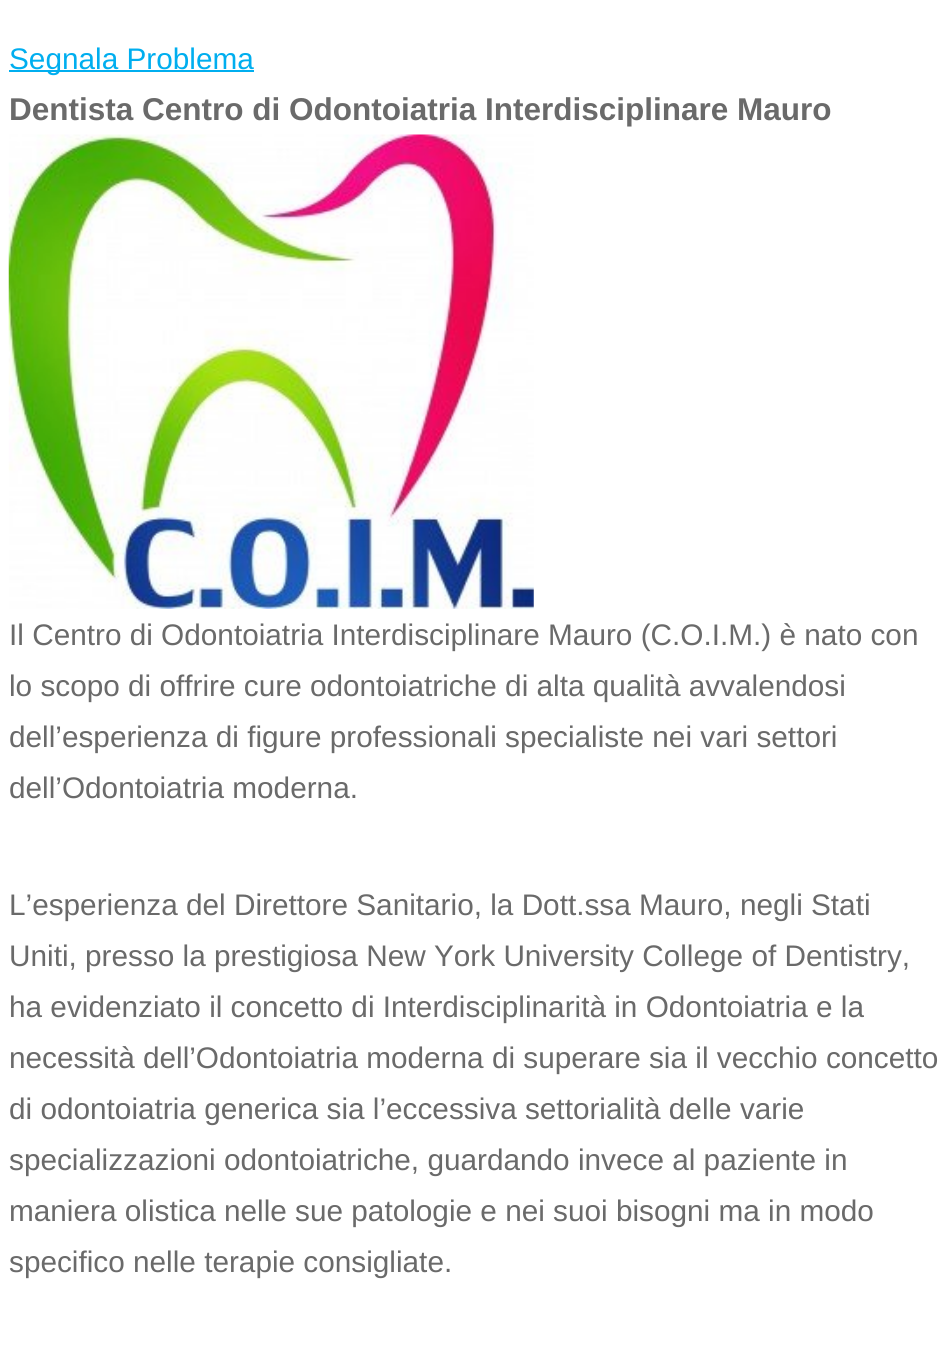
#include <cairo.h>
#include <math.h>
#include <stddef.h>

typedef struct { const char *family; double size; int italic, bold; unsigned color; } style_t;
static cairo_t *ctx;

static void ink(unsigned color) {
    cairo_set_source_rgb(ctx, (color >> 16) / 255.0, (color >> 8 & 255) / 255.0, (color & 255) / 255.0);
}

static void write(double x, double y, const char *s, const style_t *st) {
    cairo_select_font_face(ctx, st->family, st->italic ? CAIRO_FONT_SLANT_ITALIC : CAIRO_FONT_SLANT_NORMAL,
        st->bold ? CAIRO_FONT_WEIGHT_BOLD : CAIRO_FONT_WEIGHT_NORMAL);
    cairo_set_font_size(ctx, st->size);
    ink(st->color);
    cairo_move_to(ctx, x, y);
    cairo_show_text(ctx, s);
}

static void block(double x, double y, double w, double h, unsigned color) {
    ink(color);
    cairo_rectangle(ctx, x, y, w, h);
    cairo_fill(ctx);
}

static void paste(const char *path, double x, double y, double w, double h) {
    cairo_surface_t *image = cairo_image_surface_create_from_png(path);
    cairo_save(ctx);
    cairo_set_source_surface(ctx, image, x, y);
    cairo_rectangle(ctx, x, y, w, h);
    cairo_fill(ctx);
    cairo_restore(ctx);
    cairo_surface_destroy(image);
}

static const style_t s1 = {"Liberation Sans", 29.75, 0, 0, 0x00aeef};
static const style_t s2 = {"Liberation Sans", 31.5, 0, 1, 0x6a6a6a};
static const style_t s3 = {"Liberation Sans", 29.75, 0, 0, 0x6a6a6a};

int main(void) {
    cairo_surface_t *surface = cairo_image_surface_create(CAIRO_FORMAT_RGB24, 952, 1355);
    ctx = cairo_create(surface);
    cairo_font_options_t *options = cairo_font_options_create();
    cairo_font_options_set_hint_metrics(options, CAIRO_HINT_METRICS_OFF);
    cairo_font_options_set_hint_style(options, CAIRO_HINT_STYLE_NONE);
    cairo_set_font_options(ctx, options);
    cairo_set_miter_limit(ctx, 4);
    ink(0xffffff);
    cairo_paint(ctx);
    block(9, 70, 245, 2, 0x00aeef);
    write(9, 69, "Segnala Problema", &s1);
    write(9, 120, "Dentista Centro di Odontoiatria Interdisciplinare Mauro", &s2);
    paste("pic1.png", 8, 134, 526, 475);
    write(9, 645, "Il Centro di Odontoiatria Interdisciplinare Mauro (C.O.I.M.) è nato con", &s3);
    write(9, 696, "lo scopo di offrire cure odontoiatriche di alta qualità avvalendosi", &s3);
    write(9, 747, "dell’esperienza di figure professionali specialiste nei vari settori", &s3);
    write(9, 798, "dell’Odontoiatria moderna.", &s3);
    write(9, 915, "L’esperienza del Direttore Sanitario, la Dott.ssa Mauro, negli Stati", &s3);
    write(9, 966, "Uniti, presso la prestigiosa New York University College of Dentistry,", &s3);
    write(9, 1017, "ha evidenziato il concetto di Interdisciplinarità in Odontoiatria e la", &s3);
    write(9, 1068, "necessità dell’Odontoiatria moderna di superare sia il vecchio concetto", &s3);
    write(9, 1119, "di odontoiatria generica sia l’eccessiva settorialità delle varie", &s3);
    write(9, 1170, "specializzazioni odontoiatriche, guardando invece al paziente in", &s3);
    write(9, 1221, "maniera olistica nelle sue patologie e nei suoi bisogni ma in modo", &s3);
    write(9, 1272, "specifico nelle terapie consigliate.", &s3);
    cairo_surface_write_to_png(surface, "screenshot.png");
    cairo_font_options_destroy(options);
    cairo_destroy(ctx);
    cairo_surface_destroy(surface);
    return 0;
}
